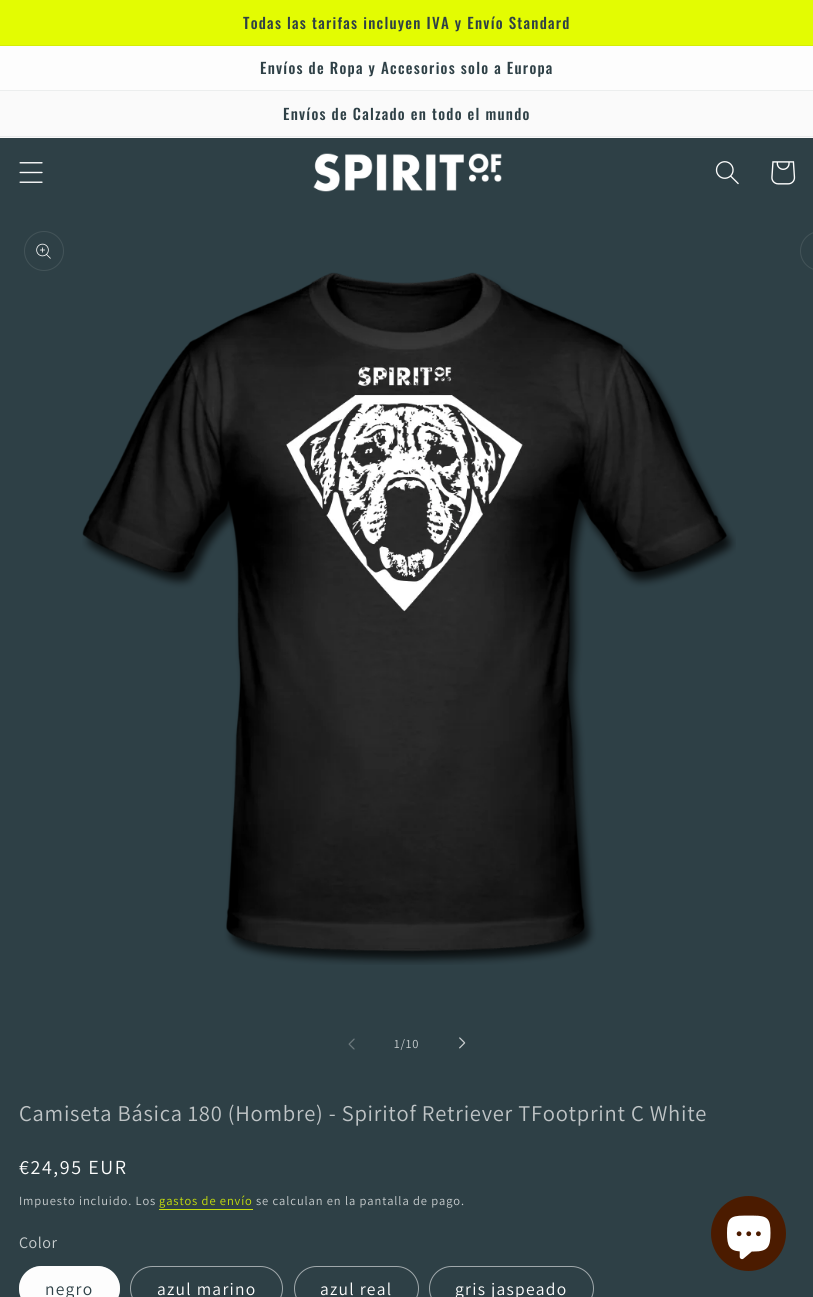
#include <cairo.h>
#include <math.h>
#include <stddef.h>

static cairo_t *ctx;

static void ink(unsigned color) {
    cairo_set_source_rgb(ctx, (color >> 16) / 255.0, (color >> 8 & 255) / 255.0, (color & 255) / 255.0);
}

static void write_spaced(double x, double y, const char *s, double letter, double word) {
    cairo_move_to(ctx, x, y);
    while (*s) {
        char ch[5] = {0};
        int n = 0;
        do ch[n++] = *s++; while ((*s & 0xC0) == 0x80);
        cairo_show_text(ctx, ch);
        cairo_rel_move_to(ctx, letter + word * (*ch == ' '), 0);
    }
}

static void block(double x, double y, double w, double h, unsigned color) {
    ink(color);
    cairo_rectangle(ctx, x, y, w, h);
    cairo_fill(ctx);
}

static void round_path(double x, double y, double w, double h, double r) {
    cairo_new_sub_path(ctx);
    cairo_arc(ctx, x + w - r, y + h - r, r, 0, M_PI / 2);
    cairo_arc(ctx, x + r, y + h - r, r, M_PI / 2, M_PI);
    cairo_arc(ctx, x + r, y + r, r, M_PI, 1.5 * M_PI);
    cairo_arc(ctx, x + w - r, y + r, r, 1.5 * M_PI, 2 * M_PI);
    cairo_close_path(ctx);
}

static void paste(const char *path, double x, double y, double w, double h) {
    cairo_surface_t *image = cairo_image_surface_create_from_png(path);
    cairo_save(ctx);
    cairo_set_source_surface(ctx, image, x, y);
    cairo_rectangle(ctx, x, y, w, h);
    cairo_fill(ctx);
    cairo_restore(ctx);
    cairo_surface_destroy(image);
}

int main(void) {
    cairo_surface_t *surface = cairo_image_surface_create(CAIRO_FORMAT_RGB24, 813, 1297);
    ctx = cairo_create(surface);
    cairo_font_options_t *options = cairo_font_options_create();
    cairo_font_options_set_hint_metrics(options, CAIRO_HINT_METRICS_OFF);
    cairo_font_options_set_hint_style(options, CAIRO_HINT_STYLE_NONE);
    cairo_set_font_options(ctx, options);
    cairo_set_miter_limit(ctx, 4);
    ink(0x2e4046);
    cairo_paint(ctx);
    block(0, 0, 813, 45, 0xe3fc02);
    block(0, 45, 813, 1, 0xd5ed07);
    cairo_select_font_face(ctx, "Oswald Medium", CAIRO_FONT_SLANT_NORMAL, CAIRO_FONT_WEIGHT_NORMAL);
    cairo_set_font_size(ctx, 15);
    ink(0x2e4046);
    write_spaced(243, 29, "Todas las tarifas incluyen IVA y Envío Standard", 1.25, 0);
    block(0, 46, 813, 44, 0xfdfdfd);
    block(0, 90, 813, 1, 0xeceeee);
    ink(0x2e4046);
    write_spaced(260, 74, "Envíos de Ropa y Accesorios solo a Europa", 1.25, 0);
    block(0, 91, 813, 47, 0xfafafa);
    block(0, 136, 813, 1, 0xeaebec);
    ink(0x2e4046);
    write_spaced(283, 120, "Envíos de Calzado en todo el mundo", 1.25, 0);
    paste("pic1.png", 19, 162, 24, 21);
    paste("pic2.png", 313, 153, 189, 39);
    paste("pic3.png", 715, 161, 24, 24);
    paste("pic4.png", 771, 161, 25, 24);
    cairo_arc(ctx, 44, 251, 19.5, 0, 2 * M_PI);
    ink(0x435358);
    cairo_set_line_width(ctx, 1);
    cairo_stroke(ctx);
    paste("pic5.png", 36, 243, 15, 16);
    paste("pic6.png", 82, 272, 654, 693);
    round_path(800.5, 231.5, 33, 39, 19.5);
    cairo_stroke(ctx);
    paste("pic7.png", 348, 1038, 7, 12);
    cairo_select_font_face(ctx, "Assistant", CAIRO_FONT_SLANT_NORMAL, CAIRO_FONT_WEIGHT_NORMAL);
    cairo_set_font_size(ctx, 12.5);
    ink(0xc9cecf);
    write_spaced(394, 1048, "1/10", 0.9, 0);
    paste("pic8.png", 459, 1037, 7, 12);
    cairo_set_font_size(ctx, 22.5);
    ink(0xbfc4c6);
    write_spaced(19, 1121, "Camiseta Básica 180 (Hombre) - Spiritof Retriever TFootprint C White", 0.75, 0);
    cairo_set_font_size(ctx, 20);
    ink(0xfdfdfd);
    write_spaced(19, 1174, "€24,95 EUR", 1.6, 0);
    cairo_set_font_size(ctx, 12.5);
    ink(0xc9cecf);
    write_spaced(19, 1205, "Impuesto incluido. Los", 0.9, 0);
    ink(0xc8e00c);
    write_spaced(159, 1205, "gastos de envío", 0.9, 0);
    block(159, 1209, 94, 1, 0xc8e00c);
    ink(0xc9cecf);
    write_spaced(256, 1205, "se calculan en la pantalla de pago.", 0.9, 0);
    cairo_set_font_size(ctx, 16);
    write_spaced(19, 1248, "Color", 0.5, 0);
    ink(0xfdfdfd);
    round_path(19, 1266, 101, 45, 22.5);
    cairo_fill(ctx);
    round_path(19.5, 1266.5, 100, 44, 22);
    cairo_set_source_rgba(ctx, 0.992, 0.992, 0.992, 0.55);
    cairo_stroke(ctx);
    cairo_set_font_size(ctx, 17.5);
    ink(0x2e4046);
    write_spaced(45, 1295, "negro", 1.25, 0);
    round_path(130.5, 1266.5, 152, 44, 22);
    ink(0xa0a8ab);
    cairo_stroke(ctx);
    ink(0xfdfdfd);
    write_spaced(157, 1295, "azul marino", 1.25, 0);
    round_path(294.5, 1266.5, 124, 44, 22);
    ink(0xa0a8ab);
    cairo_stroke(ctx);
    ink(0xfdfdfd);
    write_spaced(320, 1295, "azul real", 1.25, 0);
    round_path(429.5, 1266.5, 164, 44, 22);
    ink(0xa0a8ab);
    cairo_stroke(ctx);
    ink(0xfdfdfd);
    write_spaced(455, 1295, "gris jaspeado", 1.25, 0);
    ink(0x4b1b00);
    cairo_new_path(ctx);
    cairo_arc(ctx, 748.5, 1233.5, 37.5, 0, 2 * M_PI);
    cairo_fill(ctx);
    paste("pic9.png", 727, 1215, 44, 45);
    cairo_surface_write_to_png(surface, "screenshot.png");
    cairo_font_options_destroy(options);
    cairo_destroy(ctx);
    cairo_surface_destroy(surface);
    return 0;
}
